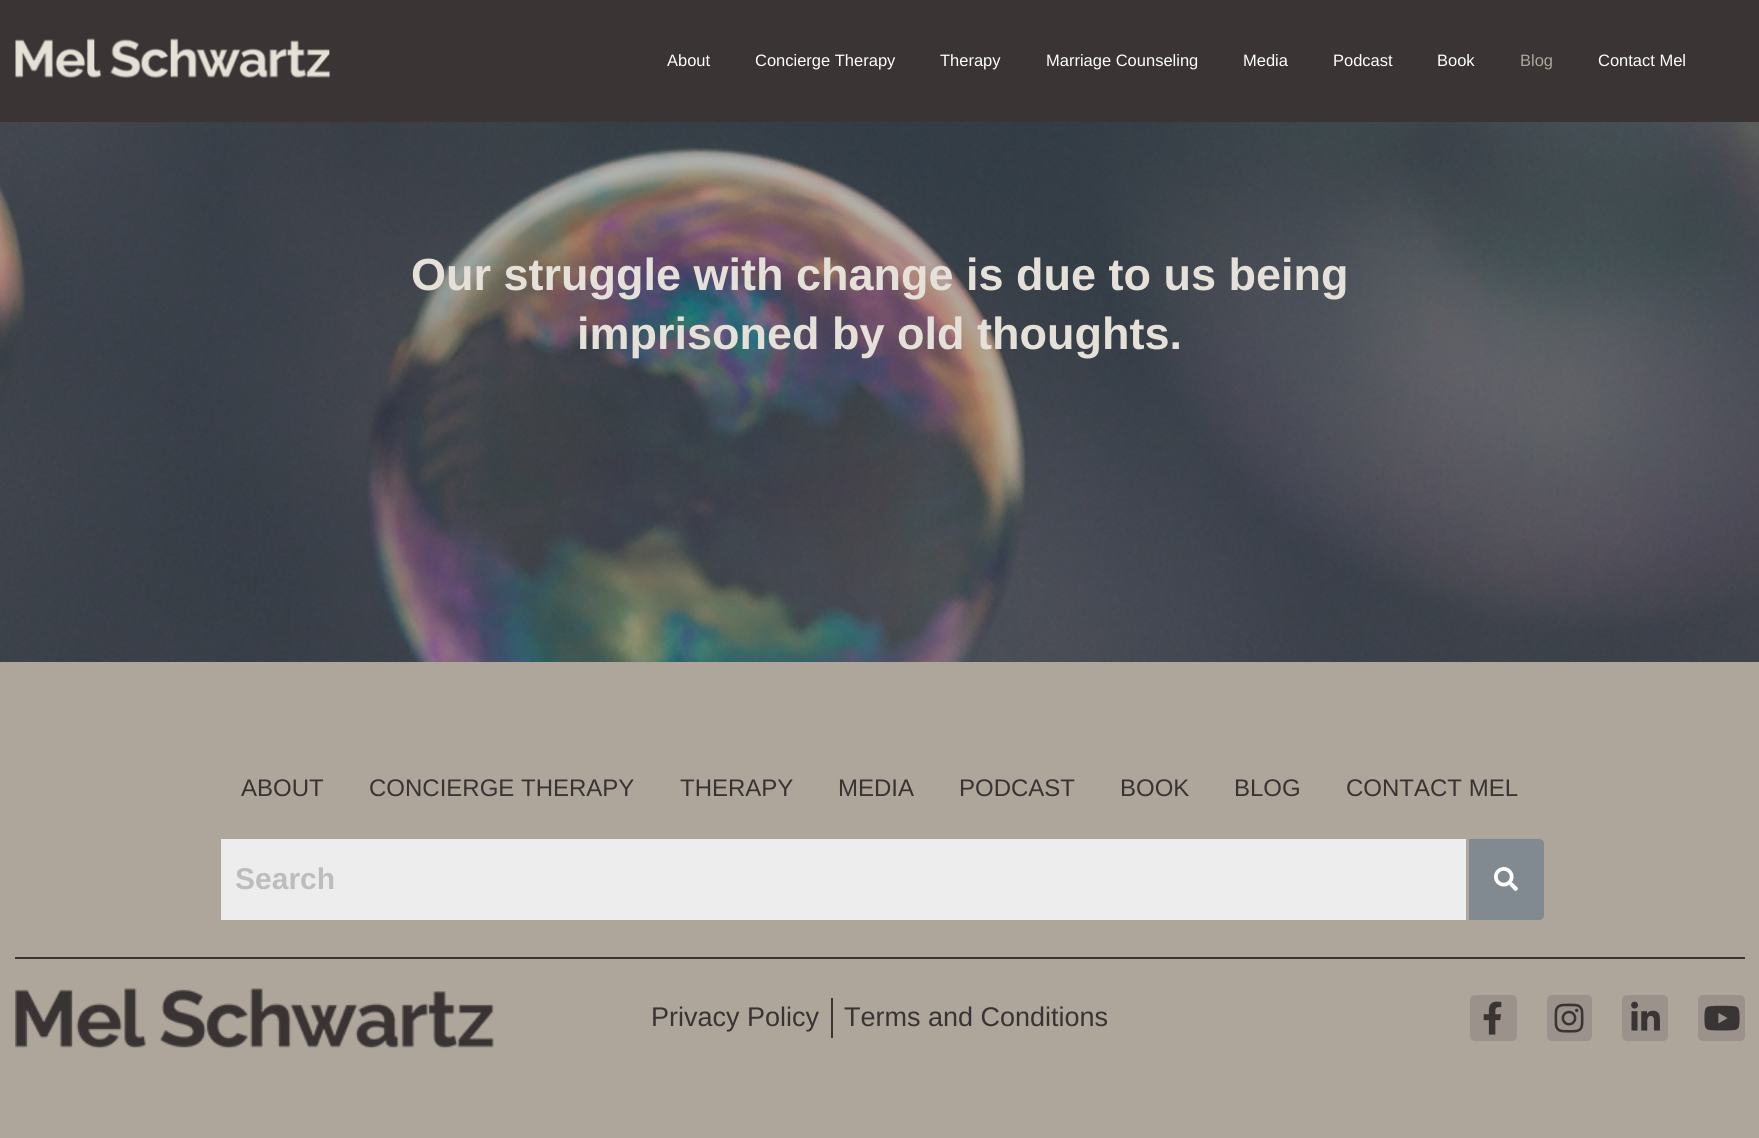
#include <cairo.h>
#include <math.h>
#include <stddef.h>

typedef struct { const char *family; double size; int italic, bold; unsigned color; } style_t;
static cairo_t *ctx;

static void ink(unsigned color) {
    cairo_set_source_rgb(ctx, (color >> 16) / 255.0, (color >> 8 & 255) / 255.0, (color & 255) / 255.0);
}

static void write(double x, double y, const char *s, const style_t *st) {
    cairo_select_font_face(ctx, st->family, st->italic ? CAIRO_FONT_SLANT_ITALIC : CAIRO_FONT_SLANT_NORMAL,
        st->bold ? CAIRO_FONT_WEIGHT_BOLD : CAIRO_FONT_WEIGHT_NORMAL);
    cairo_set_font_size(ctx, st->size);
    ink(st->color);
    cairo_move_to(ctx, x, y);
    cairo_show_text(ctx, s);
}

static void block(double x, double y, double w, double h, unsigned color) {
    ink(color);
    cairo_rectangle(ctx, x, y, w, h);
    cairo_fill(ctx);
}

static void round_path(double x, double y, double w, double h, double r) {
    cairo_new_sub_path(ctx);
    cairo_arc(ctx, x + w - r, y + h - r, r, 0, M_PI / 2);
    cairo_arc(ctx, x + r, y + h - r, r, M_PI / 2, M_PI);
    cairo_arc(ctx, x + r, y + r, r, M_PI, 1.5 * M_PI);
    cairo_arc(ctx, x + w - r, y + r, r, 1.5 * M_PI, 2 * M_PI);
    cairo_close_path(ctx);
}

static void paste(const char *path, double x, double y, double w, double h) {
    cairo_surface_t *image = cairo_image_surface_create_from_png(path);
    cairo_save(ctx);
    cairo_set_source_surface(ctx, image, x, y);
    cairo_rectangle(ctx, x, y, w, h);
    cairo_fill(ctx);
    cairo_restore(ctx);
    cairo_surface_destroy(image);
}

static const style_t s1 = {"Liberation Sans", 16.5, 0, 0, 0xffffff};
static const style_t s2 = {"Liberation Sans", 16.5, 0, 0, 0xaea69b};
static const style_t s3 = {"Liberation Sans", 45, 0, 1, 0xe5e1d8};
static const style_t s4 = {"Liberation Sans", 24, 0, 0, 0x393333};
static const style_t s5 = {"Liberation Sans", 30, 0, 1, 0xbdbdbd};
static const style_t s6 = {"Liberation Sans", 27, 0, 0, 0x393333};

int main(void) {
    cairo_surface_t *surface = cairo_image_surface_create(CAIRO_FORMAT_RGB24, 1759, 1138);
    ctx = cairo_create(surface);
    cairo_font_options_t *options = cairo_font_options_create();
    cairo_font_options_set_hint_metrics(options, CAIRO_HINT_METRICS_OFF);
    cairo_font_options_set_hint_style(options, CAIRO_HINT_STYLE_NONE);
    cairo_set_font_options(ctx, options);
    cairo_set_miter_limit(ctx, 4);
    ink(0xffffff);
    cairo_paint(ctx);
    block(0, 0, 1759, 122, 0x3a3434);
    paste("pic1.png", 15, 38, 316, 40);
    write(667, 66, "About", &s1);
    write(755, 66, "Concierge Therapy", &s1);
    write(940, 66, "Therapy", &s1);
    write(1046, 66, "Marriage Counseling", &s1);
    write(1243, 66, "Media", &s1);
    write(1333, 66, "Podcast", &s1);
    write(1437, 66, "Book", &s1);
    write(1520, 66, "Blog", &s2);
    write(1598, 66, "Contact Mel", &s1);
    paste("pic2.png", 0, 122, 1759, 540);
    write(411, 290, "Our struggle with change is due to us being", &s3);
    write(577, 349, "imprisoned by old thoughts.", &s3);
    block(0, 662, 1759, 476, 0xaea69b);
    write(241, 796, "ABOUT", &s4);
    write(369, 796, "CONCIERGE THERAPY", &s4);
    write(680, 796, "THERAPY", &s4);
    write(838, 796, "MEDIA", &s4);
    write(959, 796, "PODCAST", &s4);
    write(1120, 796, "BOOK", &s4);
    write(1234, 796, "BLOG", &s4);
    write(1346, 796, "CONTACT MEL", &s4);
    block(221, 839, 1245, 81, 0xededed);
    write(235, 889, "Search", &s5);
    ink(0x818a91);
    cairo_new_path(ctx);
    cairo_move_to(ctx, 1469, 839);
    cairo_line_to(ctx, 1539, 839);
    cairo_curve_to(ctx, 1542, 839, 1544, 841, 1544, 844);
    cairo_line_to(ctx, 1544, 915);
    cairo_curve_to(ctx, 1544, 918, 1542, 920, 1539, 920);
    cairo_line_to(ctx, 1469, 920);
    cairo_close_path(ctx);
    cairo_fill(ctx);
    paste("pic3.png", 1494, 867, 24, 24);
    block(15, 957, 1730, 2, 0x3a3434);
    paste("pic4.png", 15, 988, 479, 61);
    write(651, 1026, "Privacy Policy", &s6);
    block(831, 998, 2, 40, 0x3a3434);
    write(844, 1026, "Terms and Conditions", &s6);
    ink(0x9b928b);
    round_path(1470, 995, 47, 46, 5);
    cairo_fill(ctx);
    paste("pic5.png", 1483, 1001, 19, 34);
    round_path(1547, 995, 45, 46, 5);
    cairo_fill(ctx);
    paste("pic6.png", 1554, 1003, 30, 30);
    round_path(1622, 995, 46, 46, 5);
    cairo_fill(ctx);
    paste("pic7.png", 1631, 1001, 29, 30);
    round_path(1698, 995, 47, 46, 5);
    cairo_fill(ctx);
    paste("pic8.png", 1704, 1005, 36, 26);
    cairo_surface_write_to_png(surface, "screenshot.png");
    cairo_font_options_destroy(options);
    cairo_destroy(ctx);
    cairo_surface_destroy(surface);
    return 0;
}
